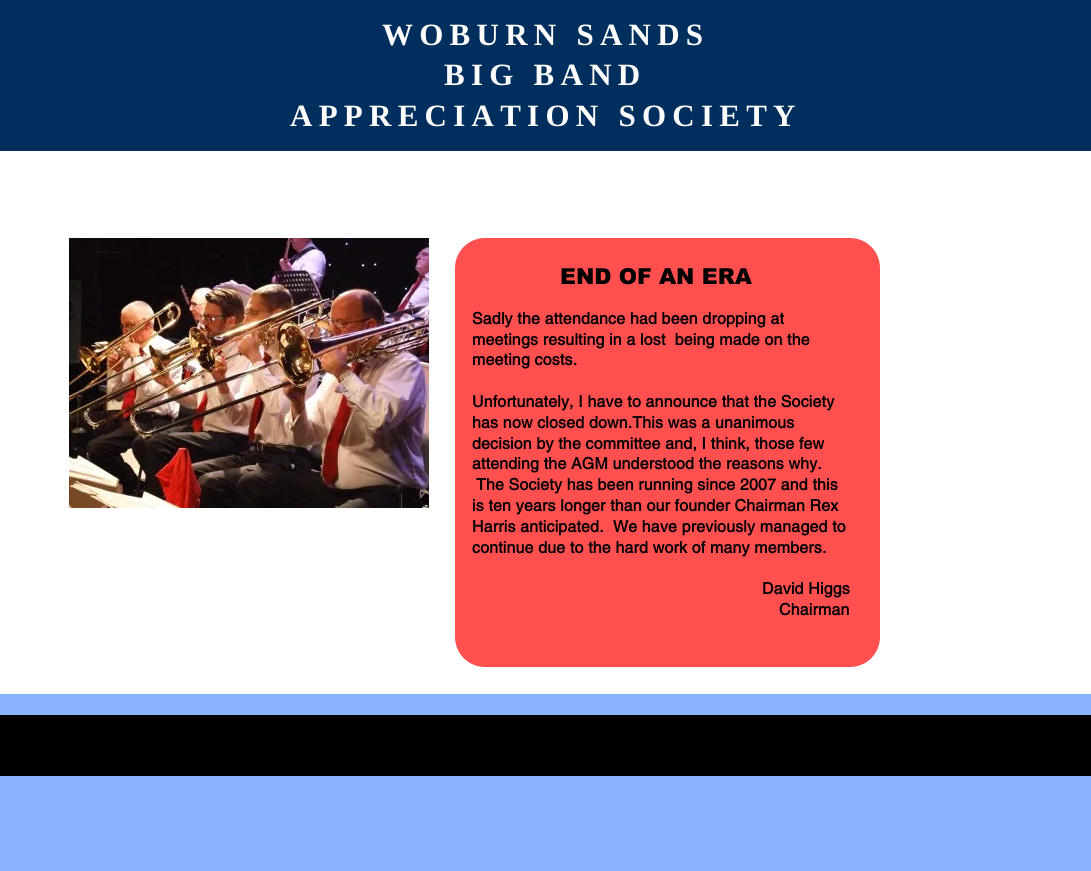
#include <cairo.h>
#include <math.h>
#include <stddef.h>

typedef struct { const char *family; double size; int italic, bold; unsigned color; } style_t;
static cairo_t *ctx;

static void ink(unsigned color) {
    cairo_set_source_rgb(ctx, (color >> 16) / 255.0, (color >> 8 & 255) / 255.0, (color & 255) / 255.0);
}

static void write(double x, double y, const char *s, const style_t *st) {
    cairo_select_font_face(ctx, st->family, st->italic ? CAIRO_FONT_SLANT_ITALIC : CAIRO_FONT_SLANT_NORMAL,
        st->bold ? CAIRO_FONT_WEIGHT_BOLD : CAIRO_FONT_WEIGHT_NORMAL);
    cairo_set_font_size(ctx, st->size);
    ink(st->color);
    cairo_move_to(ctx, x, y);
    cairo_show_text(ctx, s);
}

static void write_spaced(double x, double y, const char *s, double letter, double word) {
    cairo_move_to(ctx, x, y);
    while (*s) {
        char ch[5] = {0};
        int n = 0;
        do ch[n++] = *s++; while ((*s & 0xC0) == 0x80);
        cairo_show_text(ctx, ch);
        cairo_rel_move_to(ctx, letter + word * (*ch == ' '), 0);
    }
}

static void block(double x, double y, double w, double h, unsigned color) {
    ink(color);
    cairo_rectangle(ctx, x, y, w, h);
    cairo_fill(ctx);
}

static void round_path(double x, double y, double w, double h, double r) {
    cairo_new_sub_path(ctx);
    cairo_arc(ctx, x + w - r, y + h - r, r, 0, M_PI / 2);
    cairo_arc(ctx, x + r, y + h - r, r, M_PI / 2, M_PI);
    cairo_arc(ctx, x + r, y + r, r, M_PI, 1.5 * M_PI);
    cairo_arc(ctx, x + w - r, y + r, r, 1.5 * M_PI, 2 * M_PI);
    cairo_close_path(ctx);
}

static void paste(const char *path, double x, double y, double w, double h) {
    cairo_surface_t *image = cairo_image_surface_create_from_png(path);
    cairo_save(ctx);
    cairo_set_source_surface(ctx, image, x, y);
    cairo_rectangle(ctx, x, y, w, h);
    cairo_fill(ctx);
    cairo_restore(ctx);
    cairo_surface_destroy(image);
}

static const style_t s1 = {"arial Black", 22, 0, 0, 0x000000};

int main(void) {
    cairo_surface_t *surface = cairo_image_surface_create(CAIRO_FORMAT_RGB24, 1091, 871);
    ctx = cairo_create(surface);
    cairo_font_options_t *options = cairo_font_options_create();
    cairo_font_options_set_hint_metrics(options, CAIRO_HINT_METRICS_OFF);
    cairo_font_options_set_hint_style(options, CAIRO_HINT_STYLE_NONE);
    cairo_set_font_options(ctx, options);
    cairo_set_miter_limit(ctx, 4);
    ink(0x89b2ff);
    cairo_paint(ctx);
    block(0, 0, 1091, 151, 0x002e5d);
    cairo_select_font_face(ctx, "Liberation Serif", CAIRO_FONT_SLANT_NORMAL, CAIRO_FONT_WEIGHT_BOLD);
    cairo_set_font_size(ctx, 31);
    ink(0xffffff);
    write_spaced(382, 45, "WOBURN SANDS", 6.25, 0);
    write_spaced(444, 85, "BIG BAND", 6.25, 0);
    write_spaced(290, 126, "APPRECIATION SOCIETY", 6.25, 0);
    block(0, 151, 1091, 543, 0xffffff);
    paste("pic1.png", 69, 238, 360, 270);
    ink(0xff4f4f);
    round_path(455, 238, 425, 429, 30);
    cairo_fill(ctx);
    write(560, 284, "END OF AN ERA", &s1);
    cairo_select_font_face(ctx, "helvetica", CAIRO_FONT_SLANT_NORMAL, CAIRO_FONT_WEIGHT_BOLD);
    cairo_set_font_size(ctx, 16);
    write_spaced(472, 324, "Sadly the attendance had been dropping at", 0.15, 0);
    write_spaced(472, 345, "meetings resulting in a lost  being made on the", 0.15, 0);
    write_spaced(472, 365, "meeting costs.", 0.15, 0);
    write_spaced(472, 407, "Unfortunately, I have to announce that the Society", 0.15, 0);
    write_spaced(472, 428, "has now closed down.This was a unanimous", 0.15, 0);
    write_spaced(472, 449, "decision by the committee and, I think, those few", 0.15, 0);
    write_spaced(472, 469, "attending the AGM understood the reasons why.", 0.15, 0);
    write_spaced(476, 490, "The Society has been running since 2007 and this", 0.15, 0);
    write_spaced(472, 511, "is ten years longer than our founder Chairman Rex", 0.15, 0);
    write_spaced(472, 532, "Harris anticipated.  We have previously managed to", 0.15, 0);
    write_spaced(472, 553, "continue due to the hard work of many members.", 0.15, 0);
    write_spaced(762, 594, "David Higgs", 0.15, 0);
    write_spaced(779, 615, "Chairman", 0.15, 0);
    block(0, 715, 1091, 61, 0x000000);
    cairo_surface_write_to_png(surface, "screenshot.png");
    cairo_font_options_destroy(options);
    cairo_destroy(ctx);
    cairo_surface_destroy(surface);
    return 0;
}
